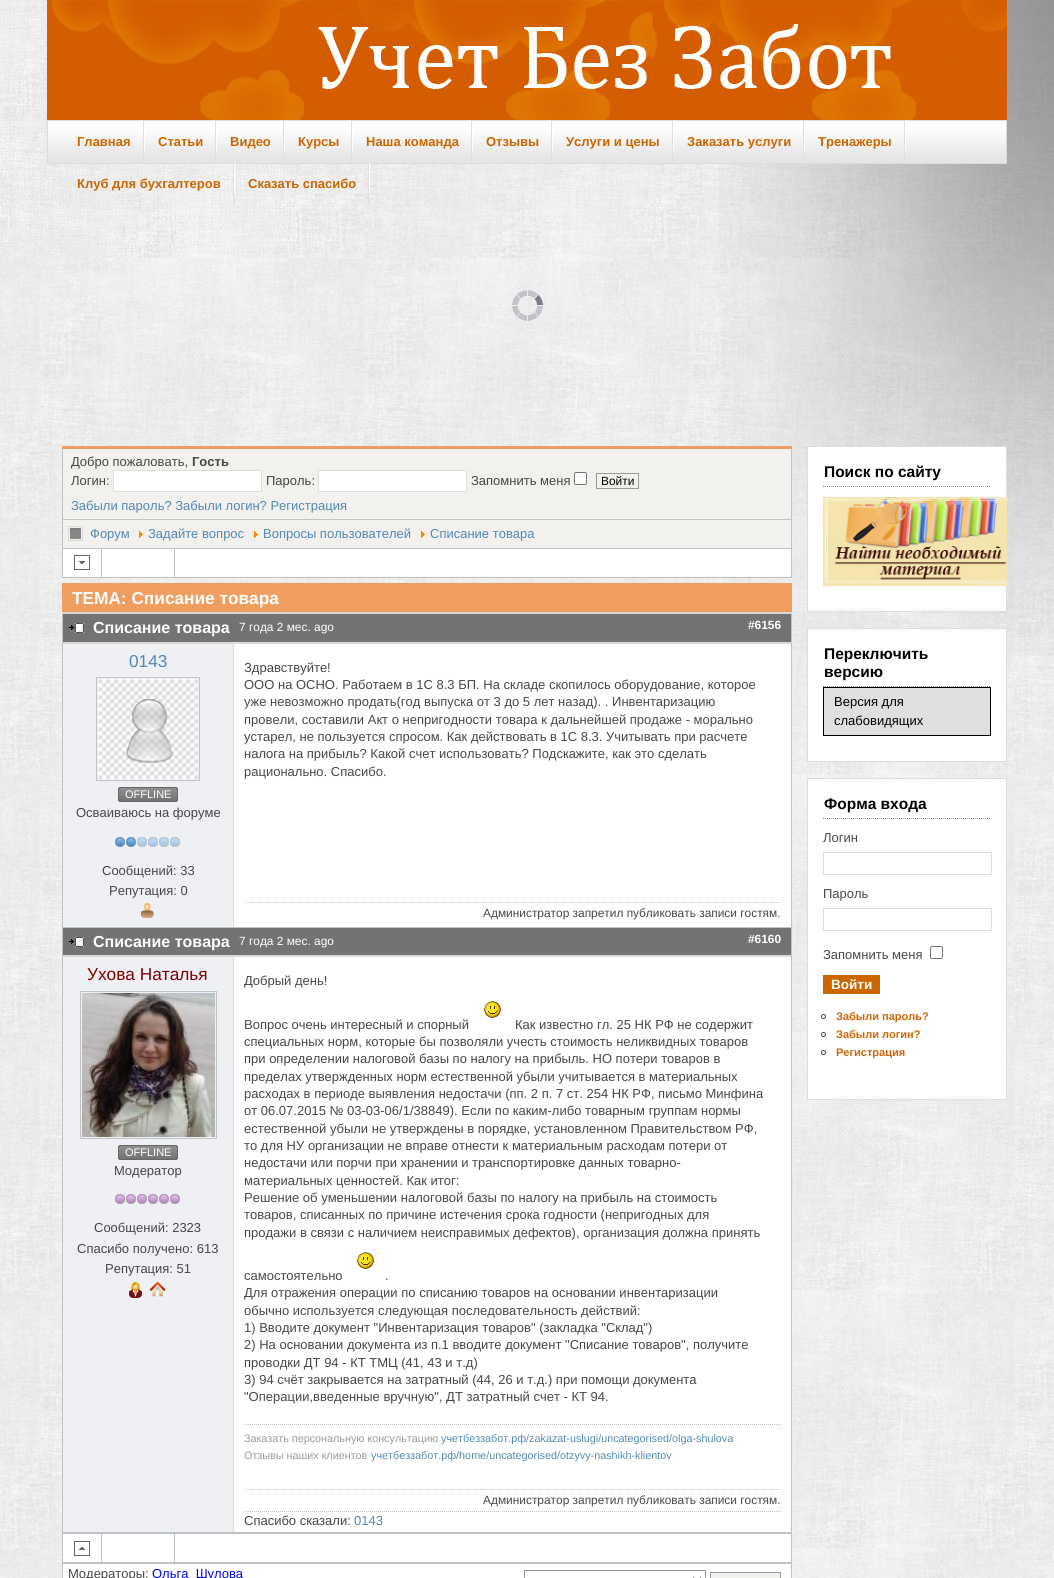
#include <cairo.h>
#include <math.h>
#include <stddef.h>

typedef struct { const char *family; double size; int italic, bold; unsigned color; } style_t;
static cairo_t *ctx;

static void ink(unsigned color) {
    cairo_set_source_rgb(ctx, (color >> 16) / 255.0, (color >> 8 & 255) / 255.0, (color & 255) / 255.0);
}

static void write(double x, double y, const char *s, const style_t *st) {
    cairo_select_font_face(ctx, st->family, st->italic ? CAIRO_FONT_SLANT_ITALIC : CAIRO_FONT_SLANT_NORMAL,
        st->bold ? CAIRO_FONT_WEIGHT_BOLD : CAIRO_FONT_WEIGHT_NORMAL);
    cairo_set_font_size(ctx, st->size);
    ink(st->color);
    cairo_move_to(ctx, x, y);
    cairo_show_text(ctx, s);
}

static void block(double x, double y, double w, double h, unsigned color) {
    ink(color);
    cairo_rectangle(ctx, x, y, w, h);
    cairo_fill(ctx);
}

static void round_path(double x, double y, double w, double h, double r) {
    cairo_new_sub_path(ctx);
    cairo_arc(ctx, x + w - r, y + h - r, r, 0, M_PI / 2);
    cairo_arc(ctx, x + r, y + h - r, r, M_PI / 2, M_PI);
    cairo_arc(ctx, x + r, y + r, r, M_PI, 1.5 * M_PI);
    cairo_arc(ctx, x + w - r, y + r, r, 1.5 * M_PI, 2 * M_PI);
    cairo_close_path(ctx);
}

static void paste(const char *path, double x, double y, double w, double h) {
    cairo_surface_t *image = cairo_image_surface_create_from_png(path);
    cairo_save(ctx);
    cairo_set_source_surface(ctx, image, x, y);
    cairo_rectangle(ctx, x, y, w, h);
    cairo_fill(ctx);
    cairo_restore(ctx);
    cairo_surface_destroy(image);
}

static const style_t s1 = {"Liberation Sans", 13, 0, 1, 0xcc6600};
static const style_t s2 = {"Liberation Sans", 13, 0, 0, 0x474747};
static const style_t s3 = {"Liberation Sans", 13, 0, 1, 0x474747};
static const style_t s4 = {"Liberation Sans", 11.9, 0, 0, 0x000000};
static const style_t s5 = {"Liberation Sans", 13, 0, 0, 0x5388b4};
static const style_t s6 = {"Liberation Sans", 17.25, 0, 1, 0xffffff};
static const style_t s7 = {"Liberation Sans", 16, 0, 1, 0xffffff};
static const style_t s8 = {"Liberation Sans", 11.9, 0, 0, 0xffffff};
static const style_t s9 = {"Liberation Sans", 11.9, 0, 1, 0xffffff};
static const style_t s10 = {"Liberation Sans", 17.25, 0, 0, 0x5388b4};
static const style_t s11 = {"Liberation Sans", 11, 0, 0, 0xffffff};
static const style_t s12 = {"Liberation Sans", 11.9, 0, 0, 0x474747};
static const style_t s13 = {"Liberation Sans", 17.25, 0, 0, 0x800000};
static const style_t s14 = {"Liberation Sans", 10.8, 0, 0, 0x999999};
static const style_t s15 = {"Liberation Sans", 10.8, 0, 0, 0x5388b4};
static const style_t s16 = {"Liberation Sans", 13, 0, 0, 0x0000ff};
static const style_t s17 = {"Liberation Sans", 15.5, 0, 1, 0x000000};
static const style_t s18 = {"Liberation Sans", 13, 0, 0, 0x000000};
static const style_t s19 = {"Liberation Sans", 13.5, 0, 1, 0xffffff};
static const style_t s20 = {"Liberation Sans", 11, 0, 1, 0xcc6600};

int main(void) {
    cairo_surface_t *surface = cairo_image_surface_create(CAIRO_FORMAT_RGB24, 1054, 1578);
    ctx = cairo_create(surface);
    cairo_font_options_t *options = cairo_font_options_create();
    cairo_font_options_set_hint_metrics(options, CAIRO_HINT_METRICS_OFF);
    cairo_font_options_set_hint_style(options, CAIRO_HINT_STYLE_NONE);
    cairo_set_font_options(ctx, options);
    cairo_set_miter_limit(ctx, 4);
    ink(0xffffff);
    cairo_paint(ctx);
    paste("pic1.png", 0, 0, 1054, 1578);
    paste("pic2.png", 0, 0, 325, 258);
    paste("pic3.png", 719, 0, 335, 656);
    paste("pic4.png", 47, 0, 960, 120);
    paste("pic5.png", 48, 121, 958, 42);
    cairo_rectangle(ctx, 47.5, 120.5, 959, 43);
    ink(0xdcdcdc);
    cairo_set_line_width(ctx, 1);
    cairo_stroke(ctx);
    paste("pic6.png", 143, 121, 2, 42);
    write(77, 146, "Главная", &s1);
    paste("pic6.png", 215, 121, 2, 42);
    write(158, 146, "Статьи", &s1);
    paste("pic6.png", 283, 121, 2, 42);
    write(230, 146, "Видео", &s1);
    paste("pic6.png", 351, 121, 2, 42);
    write(298, 146, "Курсы", &s1);
    paste("pic6.png", 471, 121, 2, 42);
    write(366, 146, "Наша команда", &s1);
    paste("pic6.png", 551, 121, 2, 42);
    write(486, 146, "Отзывы", &s1);
    paste("pic6.png", 672, 121, 2, 42);
    write(566, 146, "Услуги и цены", &s1);
    paste("pic6.png", 803, 121, 2, 42);
    write(687, 146, "Заказать услуги", &s1);
    paste("pic6.png", 904, 121, 2, 42);
    write(818, 146, "Тренажеры", &s1);
    paste("pic6.png", 233, 163, 2, 42);
    write(77, 188, "Клуб для бухгалтеров", &s1);
    paste("pic6.png", 368, 163, 2, 42);
    write(248, 188, "Сказать спасибо", &s1);
    paste("pic7.png", 512, 290, 31, 31);
    block(62, 446, 730, 3, 0xf09e60);
    block(62, 519, 730, 1, 0xbfc3c6);
    block(791, 449, 1, 70, 0xbfc3c6);
    block(62, 449, 1, 70, 0xbfc3c6);
    block(63, 449, 728, 70, 0xf2f1ee);
    write(71, 466, "Добро пожаловать,", &s2);
    write(192, 466, "Гость", &s3);
    write(71, 485, "Логин:", &s2);
    ink(0xffffff);
    cairo_rectangle(ctx, 113.5, 470.5, 148, 21);
    cairo_fill_preserve(ctx);
    ink(0xdedede);
    cairo_stroke(ctx);
    write(266, 485, "Пароль:", &s2);
    ink(0xffffff);
    cairo_rectangle(ctx, 318.5, 470.5, 148, 21);
    cairo_fill_preserve(ctx);
    ink(0xdedede);
    cairo_stroke(ctx);
    write(471, 485, "Запомнить меня", &s2);
    ink(0xffffff);
    round_path(574.5, 472.5, 12, 12, 1.5);
    cairo_fill_preserve(ctx);
    ink(0x767676);
    cairo_stroke(ctx);
    cairo_rectangle(ctx, 596.5, 473.5, 42, 15);
    ink(0x999999);
    cairo_stroke(ctx);
    write(601, 485, "Войти", &s4);
    write(71, 510, "Забыли пароль? Забыли логин? Регистрация", &s5);
    block(63, 520, 728, 28, 0xf2f1ee);
    block(791, 520, 1, 28, 0xbfc3c6);
    block(62, 520, 1, 28, 0xbfc3c6);
    paste("pic8.png", 68, 526, 15, 15);
    write(90, 538, "Форум", &s5);
    paste("pic9.png", 139, 531, 4, 7);
    write(148, 538, "Задайте вопрос", &s5);
    paste("pic9.png", 254, 531, 4, 7);
    write(263, 538, "Вопросы пользователей", &s5);
    paste("pic9.png", 421, 531, 4, 7);
    write(430, 538, "Списание товара", &s5);
    block(63, 549, 728, 28, 0xffffff);
    block(62, 548, 730, 1, 0xbfc3c6);
    block(791, 548, 1, 30, 0xbfc3c6);
    block(62, 577, 730, 1, 0xbfc3c6);
    block(62, 548, 1, 30, 0xbfc3c6);
    paste("pic10.png", 74, 555, 16, 15);
    block(101, 548, 1, 30, 0xbfc3c6);
    block(174, 548, 1, 30, 0xbfc3c6);
    block(234, 644, 557, 888, 0xffffff);
    block(62, 583, 730, 29, 0xf09e60);
    block(62, 612, 730, 2, 0xd9d9d9);
    write(72, 604, "ТЕМА: Списание товара", &s6);
    block(63, 642, 728, 2, 0xd9d9d9);
    block(63, 614, 728, 28, 0x737373);
    paste("pic11.png", 69, 623, 15, 10);
    write(93, 633, "Списание товара", &s7);
    write(239, 631, "7 года 2 мес. ago", &s8);
    write(748, 629, "#6156", &s9);
    block(63, 644, 170, 283, 0xeff0f4);
    block(233, 927, 558, 1, 0xbfc3c6);
    block(233, 643, 1, 285, 0xdddddd);
    block(63, 927, 171, 1, 0xbfc3c6);
    write(129, 667, "0143", &s10);
    cairo_rectangle(ctx, 96.5, 677.5, 103, 103);
    ink(0xbfc3c6);
    cairo_stroke(ctx);
    paste("pic12.png", 98, 679, 100, 100);
    paste("pic13.png", 123, 787, 50, 15);
    paste("pic14.png", 118, 787, 5, 15);
    paste("pic15.png", 173, 787, 5, 15);
    write(125, 798, "OFFLINE", &s11);
    write(76, 817, "Осваиваюсь на форуме", &s2);
    paste("pic16.png", 115, 837, 65, 10);
    write(102, 875, "Сообщений: 33", &s2);
    write(109, 895, "Репутация: 0", &s2);
    paste("pic17.png", 141, 903, 13, 15);
    write(244, 672, "Здравствуйте!", &s2);
    write(244, 689, "ООО на ОСНО. Работаем в 1С 8.3 БП. На складе скопилось оборудование, которое", &s2);
    write(244, 706, "уже невозможно продать(год выпуска от 3 до 5 лет назад). . Инвентаризацию", &s2);
    write(244, 724, "провели, составили Акт о непригодности товара к дальнейшей продаже - морально", &s2);
    write(244, 741, "устарел, не пользуется спросом. Как действовать в 1С 8.3. Учитывать при расчете", &s2);
    write(244, 758, "налога на прибыль? Какой счет использовать? Подскажите, как это сделать", &s2);
    write(244, 776, "рационально. Спасибо.", &s2);
    cairo_new_path(ctx);
    cairo_move_to(ctx, 244, 902.5);
    cairo_line_to(ctx, 781, 902.5);
    ink(0xbfc3c6);
    cairo_set_dash(ctx, (double[]){1, 1}, 2, 0);
    cairo_stroke(ctx);
    write(483, 917, "Администратор запретил публиковать записи гостям.", &s12);
    block(63, 955, 728, 2, 0xd9d9d9);
    block(63, 928, 728, 27, 0x737373);
    paste("pic11.png", 69, 937, 15, 10);
    write(93, 947, "Списание товара", &s7);
    write(239, 945, "7 года 2 мес. ago", &s8);
    write(748, 943, "#6160", &s9);
    block(63, 957, 170, 575, 0xeff0f4);
    block(233, 1532, 558, 1, 0xbfc3c6);
    block(233, 957, 1, 576, 0xdddddd);
    block(63, 1532, 171, 1, 0xbfc3c6);
    write(87, 980, "Ухова Наталья", &s13);
    cairo_rectangle(ctx, 80.5, 991.5, 136, 147);
    ink(0xbfc3c6);
    cairo_set_dash(ctx, NULL, 0, 0);
    cairo_stroke(ctx);
    paste("pic18.png", 82, 993, 133, 144);
    paste("pic13.png", 123, 1145, 50, 15);
    paste("pic14.png", 118, 1145, 5, 15);
    paste("pic15.png", 173, 1145, 5, 15);
    write(125, 1156, "OFFLINE", &s11);
    write(114, 1175, "Модератор", &s2);
    paste("pic19.png", 115, 1194, 65, 10);
    write(94, 1232, "Сообщений: 2323", &s2);
    write(77, 1253, "Спасибо получено: 613", &s2);
    write(105, 1273, "Репутация: 51", &s2);
    paste("pic20.png", 129, 1282, 13, 16);
    paste("pic21.png", 150, 1282, 16, 15);
    write(244, 985, "Добрый день!", &s2);
    paste("pic22.png", 484, 1001, 17, 17);
    write(244, 1029, "Вопрос очень интересный и спорный", &s2);
    write(515, 1029, "Как известно гл. 25 НК РФ не содержит", &s2);
    write(244, 1046, "специальных норм, которые бы позволяли учесть стоимость неликвидных товаров", &s2);
    write(244, 1063, "при определении налоговой базы по налогу на прибыль. НО потери товаров в", &s2);
    write(244, 1081, "пределах утвержденных норм естественной убыли учитывается в материальных", &s2);
    write(244, 1098, "расходах в периоде выявления недостачи (пп. 2 п. 7 ст. 254 НК РФ, письмо Минфина", &s2);
    write(244, 1115, "от 06.07.2015 № 03-03-06/1/38849). Если по каким-либо товарным группам нормы", &s2);
    write(244, 1133, "естественной убыли не утверждены в порядке, установленном Правительством РФ,", &s2);
    write(244, 1150, "то для НУ организации не вправе отнести к материальным расходам потери от", &s2);
    write(244, 1167, "недостачи или порчи при хранении и транспортировке данных товарно-", &s2);
    write(244, 1185, "материальных ценностей. Как итог:", &s2);
    write(244, 1202, "Решение об уменьшении налоговой базы по налогу на прибыль на стоимость", &s2);
    write(244, 1219, "товаров, списанных по причине истечения срока годности (непригодных для", &s2);
    write(244, 1237, "продажи в связи с наличием неисправимых дефектов), организация должна принять", &s2);
    paste("pic22.png", 357, 1252, 17, 17);
    write(244, 1280, "самостоятельно", &s2);
    write(385, 1280, ".", &s2);
    write(244, 1297, "Для отражения операции по списанию товаров на основании инвентаризации", &s2);
    write(244, 1315, "обычно используется следующая последовательность действий:", &s2);
    write(244, 1332, "1) Вводите документ \"Инвентаризация товаров\" (закладка \"Склад\")", &s2);
    write(244, 1349, "2) На основании документа из п.1 вводите документ \"Списание товаров\", получите", &s2);
    write(244, 1367, "проводки ДТ 94 - КТ ТМЦ (41, 43 и т.д)", &s2);
    write(244, 1384, "3) 94 счёт закрывается на затратный (44, 26 и т.д.) при помощи документа", &s2);
    write(244, 1401, "\"Операции,введенные вручную\", ДТ затратный счет - КТ 94.", &s2);
    cairo_new_path(ctx);
    cairo_move_to(ctx, 244, 1424.5);
    cairo_line_to(ctx, 781, 1424.5);
    ink(0xbfc3c6);
    cairo_set_dash(ctx, (double[]){1, 1}, 2, 0);
    cairo_stroke(ctx);
    write(244, 1442, "Заказать персональную консультацию", &s14);
    write(441, 1442, "учетбеззабот.рф/zakazat-uslugi/uncategorised/olga-shulova", &s15);
    write(244, 1459, "Отзывы наших клиентов", &s14);
    write(371, 1459, "учетбеззабот.рф/home/uncategorised/otzyvy-nashikh-klientov", &s15);
    cairo_new_path(ctx);
    cairo_move_to(ctx, 244, 1489.5);
    cairo_line_to(ctx, 781, 1489.5);
    ink(0xbfc3c6);
    cairo_stroke(ctx);
    write(483, 1504, "Администратор запретил публиковать записи гостям.", &s12);
    cairo_new_path(ctx);
    cairo_move_to(ctx, 244, 1511.5);
    cairo_line_to(ctx, 781, 1511.5);
    ink(0xbfc3c6);
    cairo_stroke(ctx);
    write(244, 1525, "Спасибо сказали:", &s2);
    write(354, 1525, "0143", &s5);
    block(63, 1534, 728, 28, 0xffffff);
    block(62, 1533, 730, 1, 0xbfc3c6);
    block(791, 614, 1, 949, 0xbfc3c6);
    block(62, 1562, 730, 1, 0xbfc3c6);
    block(62, 614, 1, 949, 0xbfc3c6);
    paste("pic23.png", 74, 1541, 16, 15);
    block(101, 1533, 1, 30, 0xbfc3c6);
    block(174, 1533, 1, 30, 0xbfc3c6);
    ink(0xffffff);
    cairo_rectangle(ctx, 62.5, 1563.5, 729, 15);
    cairo_fill_preserve(ctx);
    ink(0xbfc3c6);
    cairo_set_dash(ctx, NULL, 0, 0);
    cairo_stroke(ctx);
    write(68, 1578, "Модераторы:", &s2);
    write(152, 1578, "Ольга_Шулова", &s16);
    cairo_rectangle(ctx, 524.5, 1570.5, 181, 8);
    ink(0x999999);
    cairo_stroke(ctx);
    cairo_new_path(ctx);
    cairo_move_to(ctx, 693, 1578);
    cairo_line_to(ctx, 697, 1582);
    cairo_line_to(ctx, 701, 1578);
    ink(0x000000);
    cairo_set_line_width(ctx, 2);
    cairo_stroke(ctx);
    ink(0xf2f1ee);
    cairo_rectangle(ctx, 710.5, 1572.5, 70, 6);
    cairo_fill_preserve(ctx);
    ink(0x999999);
    cairo_set_line_width(ctx, 1);
    cairo_stroke(ctx);
    ink(0xffffff);
    cairo_rectangle(ctx, 807.5, 446.5, 199, 165);
    cairo_fill_preserve(ctx);
    ink(0xdcdcdc);
    cairo_stroke(ctx);
    cairo_new_path(ctx);
    cairo_move_to(ctx, 823, 486.5);
    cairo_line_to(ctx, 991, 486.5);
    ink(0x888888);
    cairo_set_dash(ctx, (double[]){1, 1}, 2, 0);
    cairo_stroke(ctx);
    write(824, 477, "Поиск по сайту", &s17);
    paste("pic24.png", 823, 497, 184, 89);
    ink(0xffffff);
    cairo_rectangle(ctx, 807.5, 628.5, 199, 133);
    cairo_fill_preserve(ctx);
    ink(0xdcdcdc);
    cairo_set_dash(ctx, NULL, 0, 0);
    cairo_stroke(ctx);
    cairo_new_path(ctx);
    cairo_move_to(ctx, 823, 686.5);
    cairo_line_to(ctx, 991, 686.5);
    ink(0x888888);
    cairo_set_dash(ctx, (double[]){1, 1}, 2, 0);
    cairo_stroke(ctx);
    write(824, 659, "Переключить", &s17);
    write(824, 677, "версию", &s17);
    ink(0xdfdfdf);
    cairo_rectangle(ctx, 823.5, 687.5, 167, 48);
    cairo_fill_preserve(ctx);
    ink(0x000000);
    cairo_set_dash(ctx, NULL, 0, 0);
    cairo_stroke(ctx);
    write(834, 706, "Версия для", &s18);
    write(834, 725, "слабовидящих", &s18);
    ink(0xffffff);
    cairo_rectangle(ctx, 807.5, 778.5, 199, 321);
    cairo_fill_preserve(ctx);
    ink(0xdcdcdc);
    cairo_stroke(ctx);
    cairo_new_path(ctx);
    cairo_move_to(ctx, 823, 818.5);
    cairo_line_to(ctx, 991, 818.5);
    ink(0x888888);
    cairo_set_dash(ctx, (double[]){1, 1}, 2, 0);
    cairo_stroke(ctx);
    write(824, 809, "Форма входа", &s17);
    write(823, 842, "Логин", &s2);
    cairo_rectangle(ctx, 823.5, 852.5, 168, 22);
    ink(0xdedede);
    cairo_set_dash(ctx, NULL, 0, 0);
    cairo_stroke(ctx);
    write(823, 898, "Пароль", &s2);
    cairo_rectangle(ctx, 823.5, 908.5, 168, 22);
    ink(0xdedede);
    cairo_stroke(ctx);
    write(823, 959, "Запомнить меня", &s2);
    round_path(930.5, 946.5, 12, 12, 1.5);
    ink(0x767676);
    cairo_stroke(ctx);
    block(823, 975, 57, 19, 0xcc6600);
    write(831, 989, "Войти", &s19);
    cairo_new_path(ctx);
    cairo_arc(ctx, 823.5, 1016.5, 2, 0, 2 * M_PI);
    ink(0x474747);
    cairo_stroke(ctx);
    write(836, 1020, "Забыли пароль?", &s20);
    cairo_new_path(ctx);
    cairo_arc(ctx, 823.5, 1034.5, 2, 0, 2 * M_PI);
    ink(0x474747);
    cairo_stroke(ctx);
    write(836, 1038, "Забыли логин?", &s20);
    cairo_new_path(ctx);
    cairo_arc(ctx, 823.5, 1052.5, 2, 0, 2 * M_PI);
    ink(0x474747);
    cairo_stroke(ctx);
    write(836, 1056, "Регистрация", &s20);
    cairo_surface_write_to_png(surface, "screenshot.png");
    cairo_font_options_destroy(options);
    cairo_destroy(ctx);
    cairo_surface_destroy(surface);
    return 0;
}
